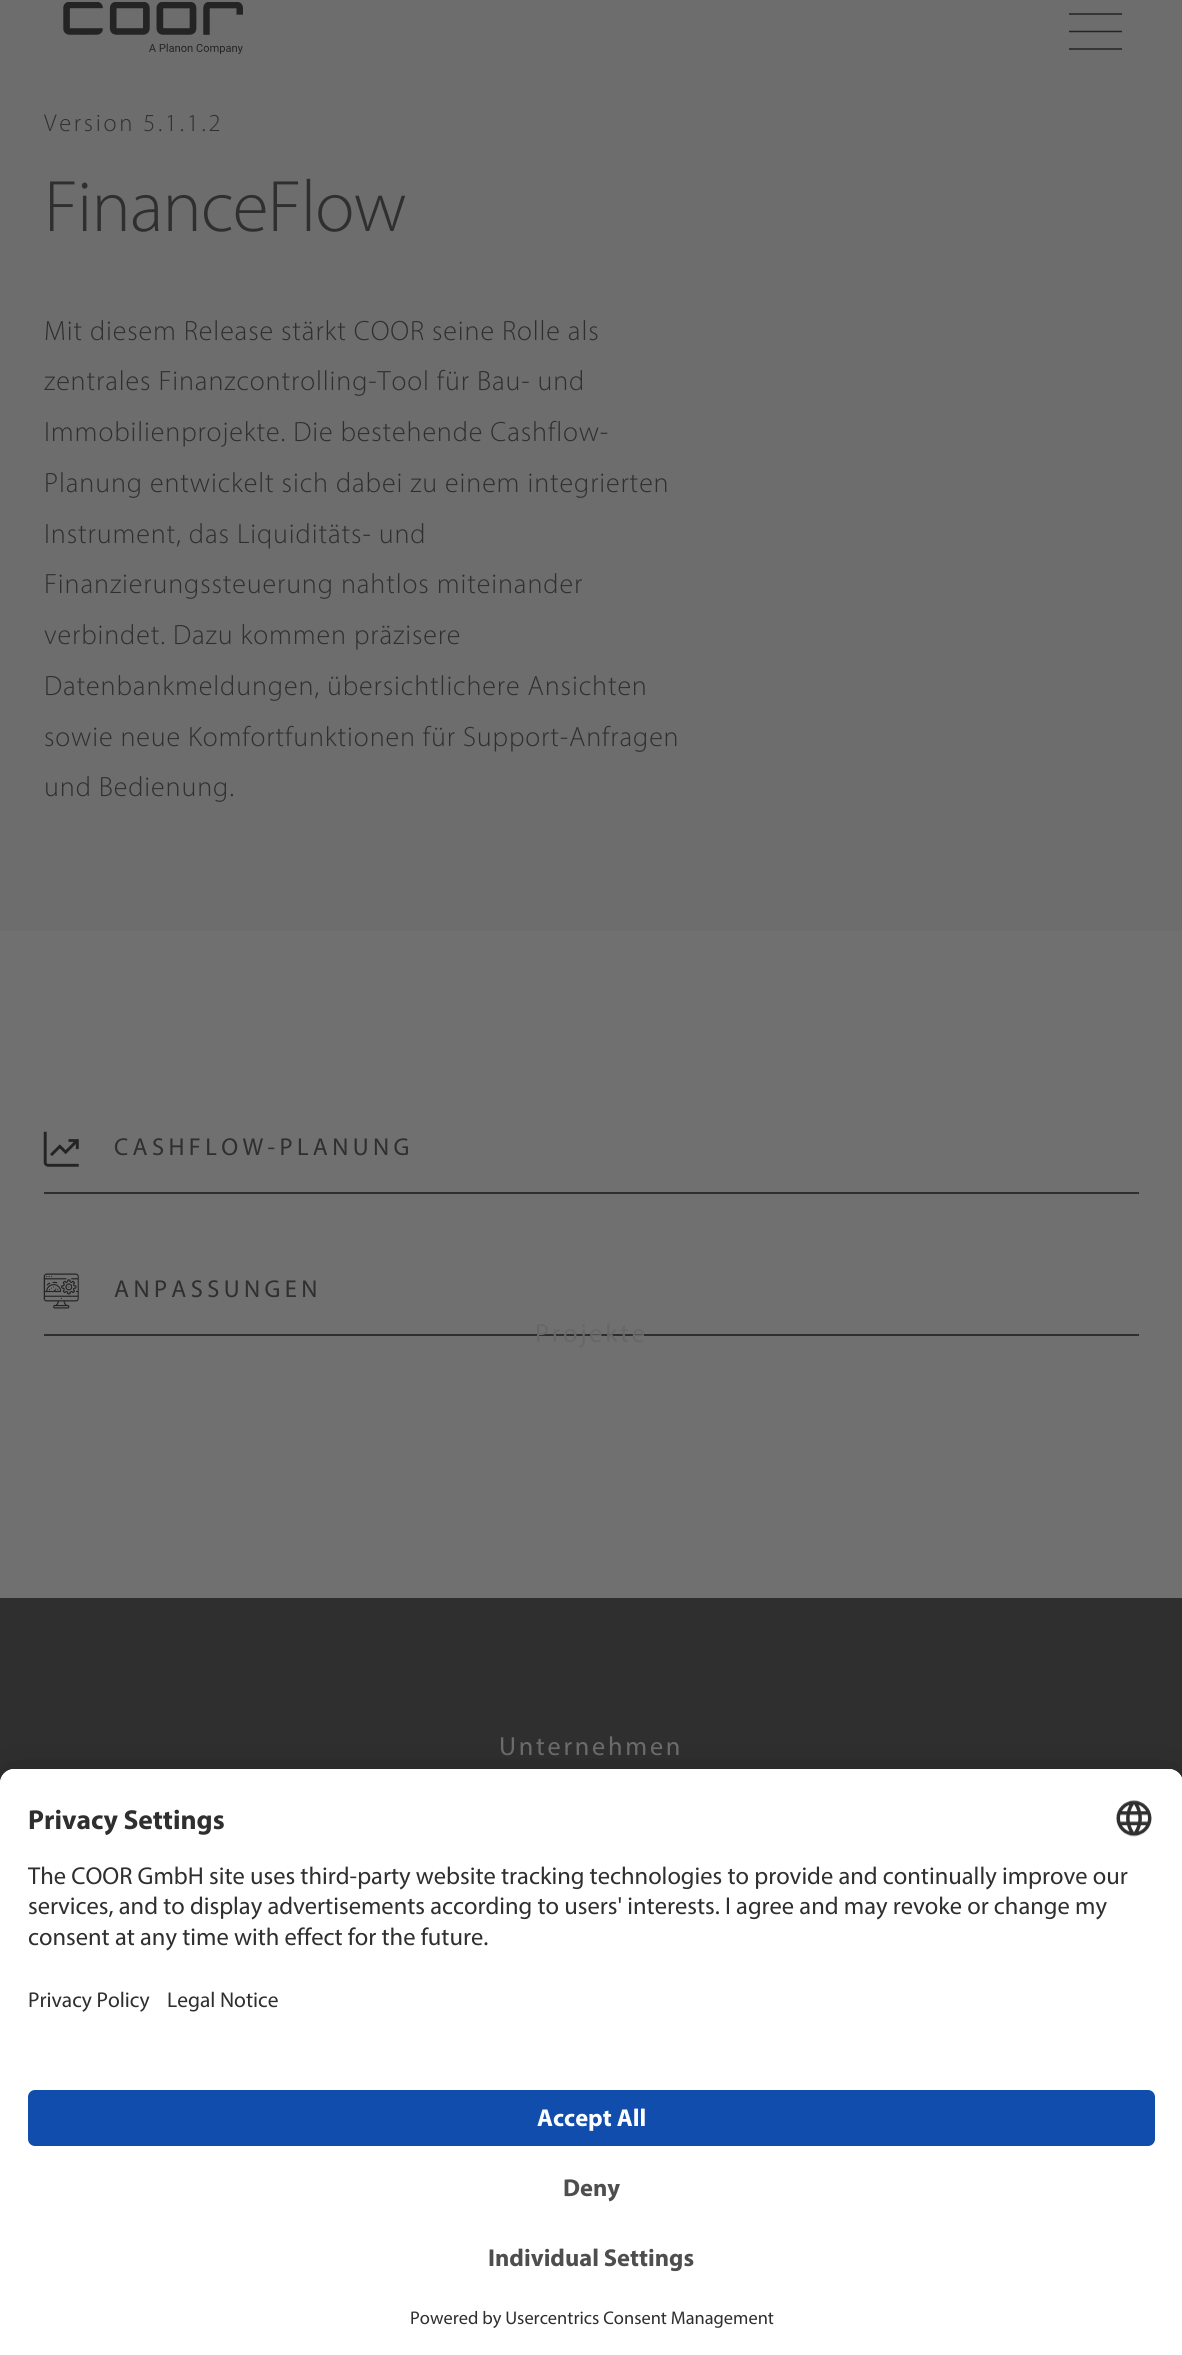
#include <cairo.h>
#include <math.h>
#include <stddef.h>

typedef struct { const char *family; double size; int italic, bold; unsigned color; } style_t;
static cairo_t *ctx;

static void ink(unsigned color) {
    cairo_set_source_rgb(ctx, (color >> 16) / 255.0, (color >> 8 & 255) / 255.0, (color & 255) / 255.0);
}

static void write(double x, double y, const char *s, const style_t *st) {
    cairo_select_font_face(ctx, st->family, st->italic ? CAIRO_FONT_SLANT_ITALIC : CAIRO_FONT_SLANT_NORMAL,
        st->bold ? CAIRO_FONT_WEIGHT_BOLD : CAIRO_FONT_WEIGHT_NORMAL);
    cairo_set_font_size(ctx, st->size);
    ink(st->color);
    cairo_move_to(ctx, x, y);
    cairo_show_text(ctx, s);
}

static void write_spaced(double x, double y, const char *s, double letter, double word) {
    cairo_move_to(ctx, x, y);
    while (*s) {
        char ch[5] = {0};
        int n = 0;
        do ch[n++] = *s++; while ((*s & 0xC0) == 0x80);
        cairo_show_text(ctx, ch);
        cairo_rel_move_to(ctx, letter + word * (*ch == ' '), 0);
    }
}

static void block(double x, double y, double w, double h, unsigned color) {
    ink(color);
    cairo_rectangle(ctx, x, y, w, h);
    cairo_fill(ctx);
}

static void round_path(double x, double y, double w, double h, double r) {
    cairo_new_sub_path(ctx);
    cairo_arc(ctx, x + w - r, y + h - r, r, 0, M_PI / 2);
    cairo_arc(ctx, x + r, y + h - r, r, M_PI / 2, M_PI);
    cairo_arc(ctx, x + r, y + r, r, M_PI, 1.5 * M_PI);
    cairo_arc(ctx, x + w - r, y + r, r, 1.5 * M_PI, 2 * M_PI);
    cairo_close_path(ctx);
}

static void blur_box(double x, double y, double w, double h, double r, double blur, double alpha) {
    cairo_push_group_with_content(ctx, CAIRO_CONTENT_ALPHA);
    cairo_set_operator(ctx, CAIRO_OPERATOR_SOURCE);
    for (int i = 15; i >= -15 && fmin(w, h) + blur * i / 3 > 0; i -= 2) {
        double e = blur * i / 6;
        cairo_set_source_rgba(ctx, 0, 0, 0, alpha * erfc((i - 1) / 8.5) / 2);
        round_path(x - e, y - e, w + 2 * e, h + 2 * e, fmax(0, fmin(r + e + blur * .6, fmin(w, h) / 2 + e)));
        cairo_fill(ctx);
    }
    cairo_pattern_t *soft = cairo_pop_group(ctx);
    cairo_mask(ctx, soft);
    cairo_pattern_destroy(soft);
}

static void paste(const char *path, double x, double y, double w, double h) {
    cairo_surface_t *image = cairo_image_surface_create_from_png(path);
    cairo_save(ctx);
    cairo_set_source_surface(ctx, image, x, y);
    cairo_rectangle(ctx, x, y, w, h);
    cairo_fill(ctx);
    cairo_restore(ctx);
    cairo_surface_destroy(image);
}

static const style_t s1 = {"Myriad", 27.5, 0, 1, 0x2f2f2f};
static const style_t s2 = {"Myriad", 24.5, 0, 0, 0x2f2f2f};
static const style_t s3 = {"Myriad", 21.5, 0, 0, 0x2f2f2f};
static const style_t s4 = {"Myriad", 24.5, 0, 1, 0xffffff};
static const style_t s5 = {"Myriad", 24.5, 0, 1, 0x4e4e4e};
static const style_t s6 = {"Myriad", 18.4, 0, 0, 0x2f2f2f};

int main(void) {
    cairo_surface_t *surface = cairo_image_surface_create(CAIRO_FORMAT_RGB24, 1182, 2355);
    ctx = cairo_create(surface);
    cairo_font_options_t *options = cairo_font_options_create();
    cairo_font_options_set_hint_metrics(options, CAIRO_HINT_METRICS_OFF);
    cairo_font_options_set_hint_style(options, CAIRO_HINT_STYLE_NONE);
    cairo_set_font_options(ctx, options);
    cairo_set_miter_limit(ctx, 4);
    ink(0x707070);
    cairo_paint(ctx);
    block(0, 0, 1182, 931, 0x6d6d6d);
    cairo_select_font_face(ctx, "Myriad Light", CAIRO_FONT_SLANT_NORMAL, CAIRO_FONT_WEIGHT_NORMAL);
    cairo_set_font_size(ctx, 24.5);
    ink(0x2f2f2f);
    write_spaced(44, 131, "Version 5.1.1.2", 2.75, 0);
    cairo_set_font_size(ctx, 73.5);
    write_spaced(44, 231, "FinanceFlow", -0.9, 0);
    cairo_set_font_size(ctx, 28);
    write_spaced(44, 340, "Mit diesem Release stärkt COOR seine Rolle als", 0.88, 0);
    write_spaced(44, 390, "zentrales Finanzcontrolling-Tool für Bau- und", 0.88, 0);
    write_spaced(44, 441, "Immobilienprojekte. Die bestehende Cashflow-", 0.88, 0);
    write_spaced(44, 492, "Planung entwickelt sich dabei zu einem integrierten", 0.88, 0);
    write_spaced(44, 543, "Instrument, das Liquiditäts- und", 0.88, 0);
    write_spaced(44, 593, "Finanzierungssteuerung nahtlos miteinander", 0.88, 0);
    write_spaced(44, 644, "verbindet. Dazu kommen präzisere", 0.88, 0);
    write_spaced(44, 695, "Datenbankmeldungen, übersichtlichere Ansichten", 0.88, 0);
    write_spaced(44, 746, "sowie neue Komfortfunktionen für Support-Anfragen", 0.88, 0);
    write_spaced(44, 796, "und Bedienung.", 0.88, 0);
    block(44, 1192, 1095, 2, 0x2f2f2f);
    paste("pic1.png", 43, 1131, 36, 36);
    cairo_select_font_face(ctx, "Myriad", CAIRO_FONT_SLANT_NORMAL, CAIRO_FONT_WEIGHT_NORMAL);
    cairo_set_font_size(ctx, 24.5);
    write_spaced(114, 1155, "CASHFLOW-PLANUNG", 4.4, 0);
    block(44, 1334, 1095, 2, 0x2f2f2f);
    paste("pic2.png", 43, 1273, 36, 36);
    write_spaced(114, 1297, "ANPASSUNGEN", 4.4, 0);
    paste("pic3.png", 63, 2, 180, 52);
    block(1069, 13, 53, 2, 0x363636);
    cairo_save(ctx);
    cairo_rectangle(ctx, 1069, 5, 53, 53);
    cairo_clip(ctx);
    cairo_new_path(ctx);
    cairo_move_to(ctx, 1069, 31.5);
    cairo_line_to(ctx, 1122, 31.5);
    ink(0x242424);
    cairo_set_line_width(ctx, 1.5);
    cairo_set_line_cap(ctx, CAIRO_LINE_CAP_SQUARE);
    cairo_stroke(ctx);
    cairo_restore(ctx);
    block(1069, 48, 53, 2, 0x363636);
    cairo_set_font_size(ctx, 26.25);
    ink(0x676767);
    write_spaced(535, 1342, "Projekte", 2.75, 0);
    block(0, 1598, 1182, 185, 0x2f2f2f);
    ink(0x6d6d6d);
    write_spaced(499, 1755, "Unternehmen", 2.75, 0);
    ink(0x000000);
    blur_box(0, 1778, 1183, 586, 14, 23, 0.22);
    ink(0xffffff);
    cairo_new_path(ctx);
    cairo_move_to(ctx, 14, 1769);
    cairo_line_to(ctx, 1169, 1769);
    cairo_curve_to(ctx, 1176.5, 1769, 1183, 1775.5, 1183, 1783);
    cairo_line_to(ctx, 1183, 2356);
    cairo_line_to(ctx, 0, 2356);
    cairo_line_to(ctx, 0, 1783);
    cairo_curve_to(ctx, 0, 1775.5, 6.5, 1769, 14, 1769);
    cairo_close_path(ctx);
    cairo_fill(ctx);
    cairo_new_path(ctx);
    cairo_move_to(ctx, 14, 1769);
    cairo_line_to(ctx, 1169, 1769);
    cairo_curve_to(ctx, 1176.5, 1769, 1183, 1775.5, 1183, 1783);
    cairo_line_to(ctx, 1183, 2069);
    cairo_line_to(ctx, 0, 2069);
    cairo_line_to(ctx, 0, 1783);
    cairo_curve_to(ctx, 0, 1775.5, 6.5, 1769, 14, 1769);
    cairo_close_path(ctx);
    cairo_fill(ctx);
    write(28, 1829, "Privacy Settings", &s1);
    paste("pic4.png", 1116, 1800, 36, 37);
    write(28, 1884, "The COOR GmbH site uses third-party website tracking technologies to provide and continually improve our", &s2);
    write(28, 1914, "services, and to display advertisements according to users' interests. I agree and may revoke or change my", &s2);
    write(28, 1945, "consent at any time with effect for the future.", &s2);
    write(28, 2007, "Privacy Policy", &s3);
    write(167, 2007, "Legal Notice", &s3);
    ink(0x114dac);
    round_path(28, 2090, 1127, 56, 7);
    cairo_fill(ctx);
    write(537, 2126, "Accept All", &s4);
    write(563, 2196, "Deny", &s5);
    write(488, 2266, "Individual Settings", &s5);
    write(410, 2324, "Powered by Usercentrics Consent Management", &s6);
    cairo_surface_write_to_png(surface, "screenshot.png");
    cairo_font_options_destroy(options);
    cairo_destroy(ctx);
    cairo_surface_destroy(surface);
    return 0;
}
